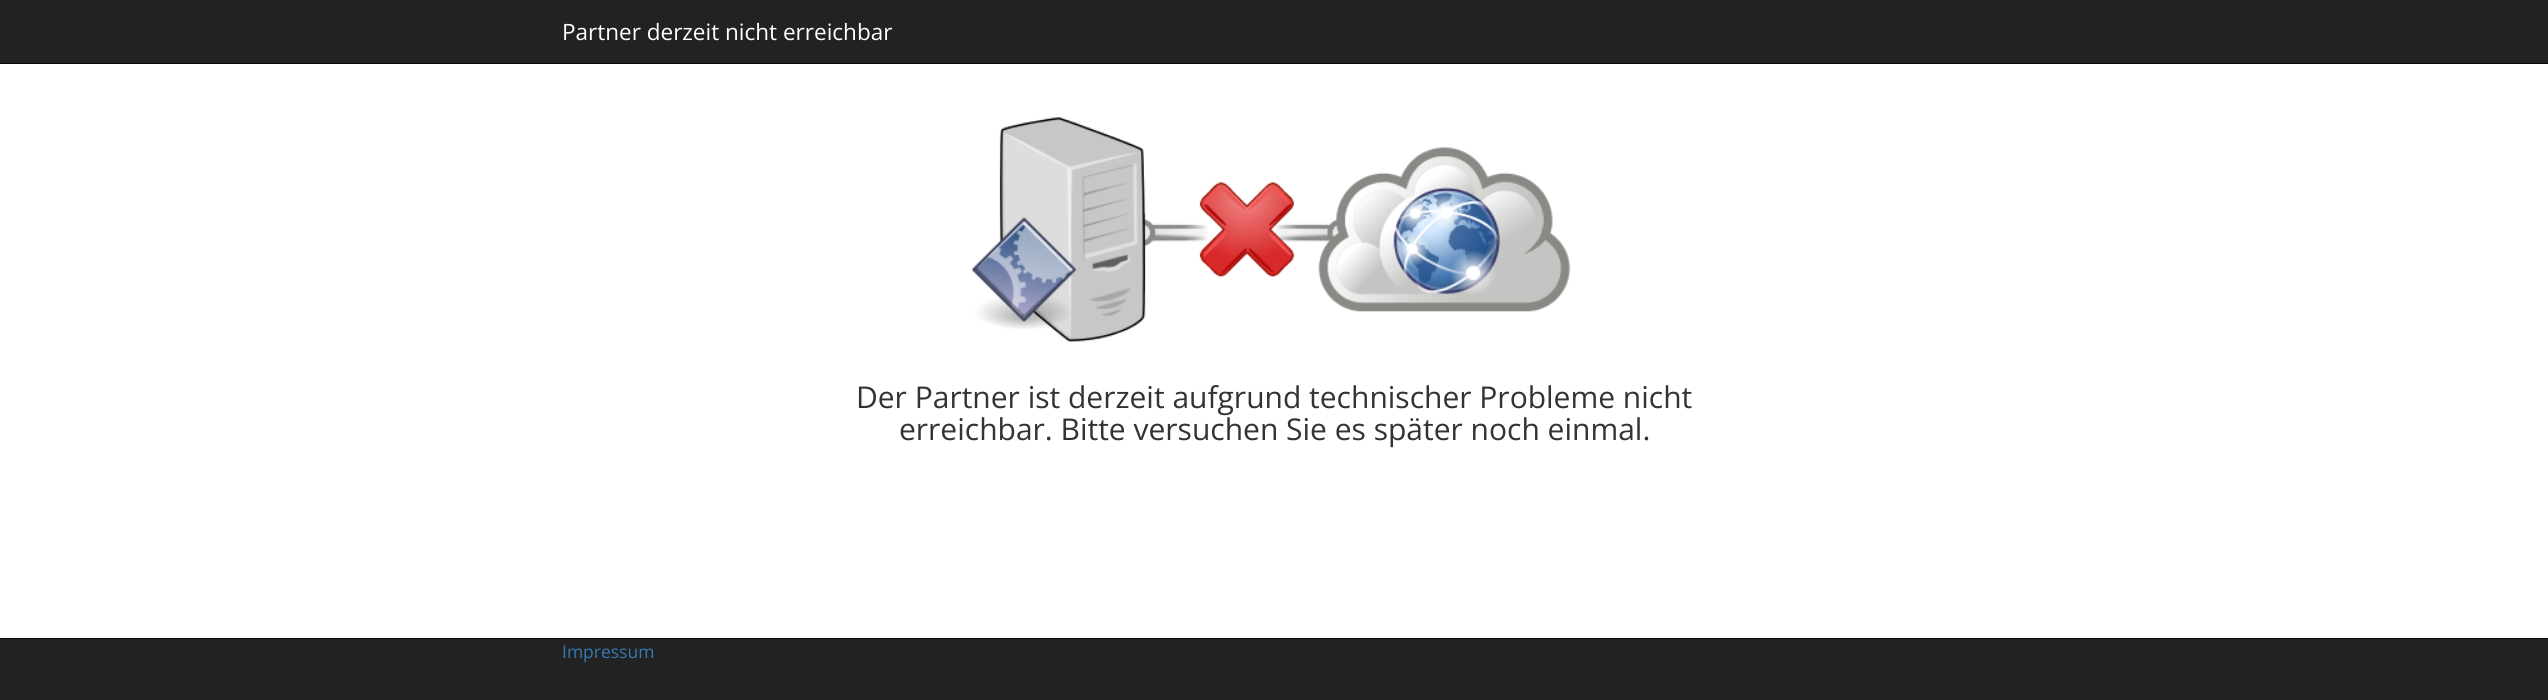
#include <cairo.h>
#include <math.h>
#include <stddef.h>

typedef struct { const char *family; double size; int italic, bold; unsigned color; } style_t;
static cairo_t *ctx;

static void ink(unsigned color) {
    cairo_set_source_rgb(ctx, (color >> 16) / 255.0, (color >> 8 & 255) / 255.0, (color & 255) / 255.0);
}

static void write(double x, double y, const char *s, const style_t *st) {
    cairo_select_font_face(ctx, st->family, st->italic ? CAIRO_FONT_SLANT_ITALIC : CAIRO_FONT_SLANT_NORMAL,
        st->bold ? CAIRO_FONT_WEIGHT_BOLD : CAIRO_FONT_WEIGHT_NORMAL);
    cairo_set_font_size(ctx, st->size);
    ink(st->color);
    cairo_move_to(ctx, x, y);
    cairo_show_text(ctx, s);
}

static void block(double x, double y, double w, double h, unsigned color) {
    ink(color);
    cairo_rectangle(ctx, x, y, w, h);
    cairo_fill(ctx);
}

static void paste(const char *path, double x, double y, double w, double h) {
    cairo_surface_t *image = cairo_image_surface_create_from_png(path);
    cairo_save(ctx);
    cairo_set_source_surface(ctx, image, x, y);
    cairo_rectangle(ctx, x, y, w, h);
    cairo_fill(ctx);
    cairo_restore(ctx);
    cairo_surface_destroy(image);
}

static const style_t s1 = {"Open Sans", 22.5, 0, 0, 0xffffff};
static const style_t s2 = {"Open Sans", 30, 0, 0, 0x333333};
static const style_t s3 = {"Open Sans", 17.5, 0, 0, 0x337ab7};

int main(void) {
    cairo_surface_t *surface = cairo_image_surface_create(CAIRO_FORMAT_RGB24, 2548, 700);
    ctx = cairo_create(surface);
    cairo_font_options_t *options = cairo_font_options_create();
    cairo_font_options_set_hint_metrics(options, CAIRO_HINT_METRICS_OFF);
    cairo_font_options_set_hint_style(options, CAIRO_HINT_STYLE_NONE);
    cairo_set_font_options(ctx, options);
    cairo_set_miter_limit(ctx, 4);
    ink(0xffffff);
    cairo_paint(ctx);
    block(0, 0, 2548, 63, 0x222222);
    block(0, 63, 2548, 1, 0x080808);
    write(562, 40, "Partner derzeit nicht erreichbar", &s1);
    paste("pic1.png", 971, 117, 600, 225);
    write(856, 408, "Der Partner ist derzeit aufgrund technischer Probleme nicht", &s2);
    write(899, 440, "erreichbar. Bitte versuchen Sie es später noch einmal.", &s2);
    block(0, 639, 2548, 61, 0x222222);
    block(0, 638, 2548, 1, 0x080808);
    write(562, 658, "Impressum", &s3);
    cairo_surface_write_to_png(surface, "screenshot.png");
    cairo_font_options_destroy(options);
    cairo_destroy(ctx);
    cairo_surface_destroy(surface);
    return 0;
}
